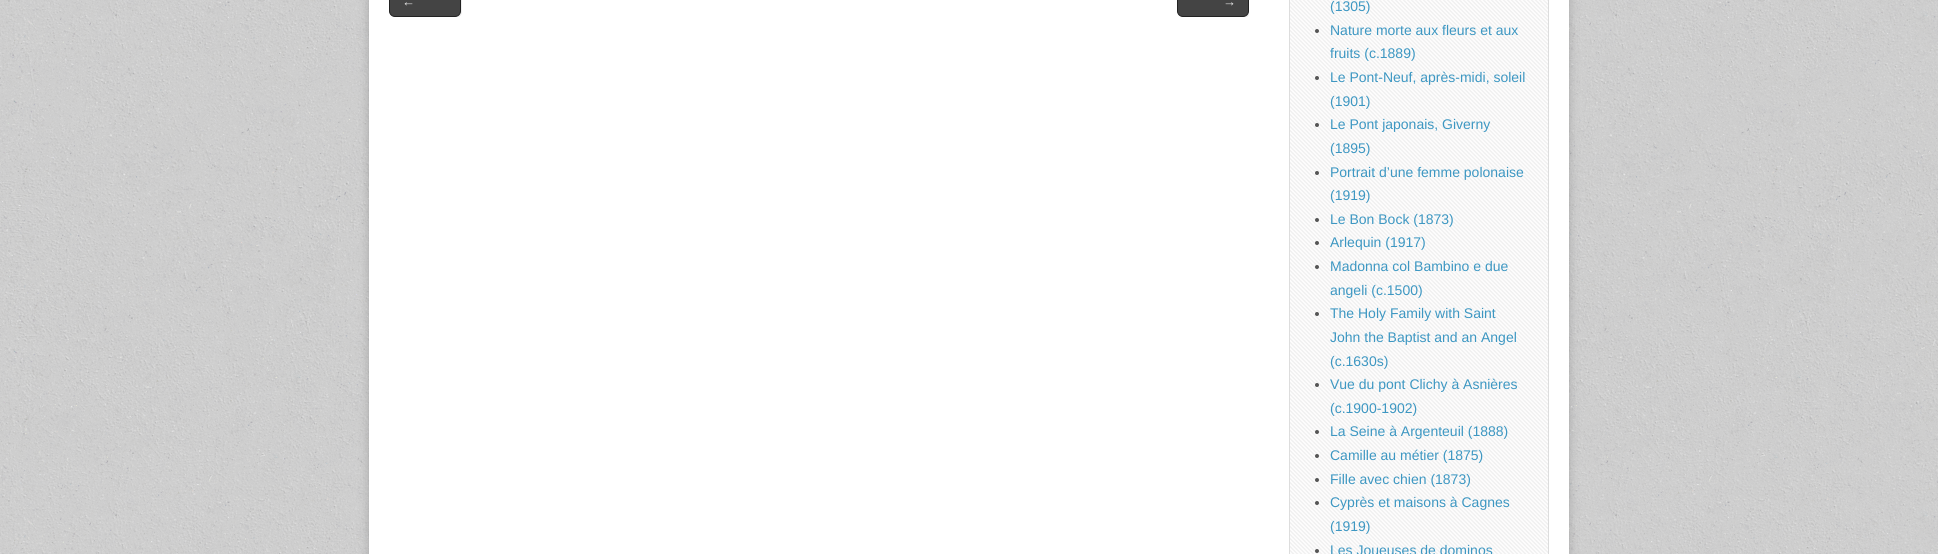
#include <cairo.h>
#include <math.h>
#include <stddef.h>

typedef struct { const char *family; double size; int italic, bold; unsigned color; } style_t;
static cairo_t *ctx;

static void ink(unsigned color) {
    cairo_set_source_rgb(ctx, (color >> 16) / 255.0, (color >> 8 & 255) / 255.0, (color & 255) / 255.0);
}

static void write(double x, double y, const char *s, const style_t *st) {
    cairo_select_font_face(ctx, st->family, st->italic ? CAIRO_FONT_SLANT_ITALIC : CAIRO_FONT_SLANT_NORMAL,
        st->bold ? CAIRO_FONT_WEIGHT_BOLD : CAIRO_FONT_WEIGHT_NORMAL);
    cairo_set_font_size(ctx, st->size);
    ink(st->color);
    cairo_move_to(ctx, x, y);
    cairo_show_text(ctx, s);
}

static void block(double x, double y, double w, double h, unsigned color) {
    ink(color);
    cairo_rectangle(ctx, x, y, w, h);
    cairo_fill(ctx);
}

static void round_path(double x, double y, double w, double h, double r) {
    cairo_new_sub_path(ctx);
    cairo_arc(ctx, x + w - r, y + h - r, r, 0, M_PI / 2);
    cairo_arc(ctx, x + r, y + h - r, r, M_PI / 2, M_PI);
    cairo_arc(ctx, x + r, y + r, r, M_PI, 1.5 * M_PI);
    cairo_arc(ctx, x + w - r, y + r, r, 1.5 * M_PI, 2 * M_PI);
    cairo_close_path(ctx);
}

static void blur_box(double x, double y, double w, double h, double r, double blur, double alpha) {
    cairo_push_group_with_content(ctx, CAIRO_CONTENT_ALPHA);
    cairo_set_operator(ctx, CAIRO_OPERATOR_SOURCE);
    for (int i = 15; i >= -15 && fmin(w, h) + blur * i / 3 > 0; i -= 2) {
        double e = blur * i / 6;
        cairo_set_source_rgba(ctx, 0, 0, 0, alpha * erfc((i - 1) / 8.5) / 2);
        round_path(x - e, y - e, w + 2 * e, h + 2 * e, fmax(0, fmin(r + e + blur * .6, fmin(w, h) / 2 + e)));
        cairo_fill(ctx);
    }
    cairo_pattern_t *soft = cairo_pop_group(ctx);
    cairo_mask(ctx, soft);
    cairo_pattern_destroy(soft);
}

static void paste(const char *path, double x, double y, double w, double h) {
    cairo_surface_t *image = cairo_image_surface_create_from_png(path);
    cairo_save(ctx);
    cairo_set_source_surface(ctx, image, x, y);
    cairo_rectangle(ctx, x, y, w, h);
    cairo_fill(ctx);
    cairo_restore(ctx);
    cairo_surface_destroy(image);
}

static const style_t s1 = {"Liberation Sans", 13, 0, 0, 0xeeeeee};
static const style_t s2 = {"Liberation Sans", 14, 0, 0, 0x3d97c2};

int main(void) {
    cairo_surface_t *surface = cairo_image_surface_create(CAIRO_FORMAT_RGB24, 1938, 554);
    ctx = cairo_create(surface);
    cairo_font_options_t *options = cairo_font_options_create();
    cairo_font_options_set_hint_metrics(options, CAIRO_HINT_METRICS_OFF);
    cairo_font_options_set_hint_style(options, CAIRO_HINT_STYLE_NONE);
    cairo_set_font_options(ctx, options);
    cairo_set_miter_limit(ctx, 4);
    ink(0xffffff);
    cairo_paint(ctx);
    paste("pic1.png", 0, 0, 1938, 554);
    ink(0x000000);
    blur_box(369, -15, 1200, 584, 0, 5, 0.2);
    block(369, 0, 1200, 554, 0xffffff);
    cairo_save(ctx);
    cairo_rectangle(ctx, 389, 0, 860, 17);
    cairo_clip(ctx);
    ink(0xeeeeee);
    cairo_new_path(ctx);
    cairo_move_to(ctx, 391, 16);
    cairo_curve_to(ctx, 392, 17, 394, 18, 396, 18);
    cairo_line_to(ctx, 456, 18);
    cairo_curve_to(ctx, 459, 18, 462, 15, 462, 12);
    cairo_line_to(ctx, 462, -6);
    cairo_curve_to(ctx, 462, -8, 461, -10, 460, -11);
    cairo_curve_to(ctx, 461, -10, 461, -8, 461, -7);
    cairo_line_to(ctx, 461, 11);
    cairo_curve_to(ctx, 461, 14, 458, 17, 455, 17);
    cairo_line_to(ctx, 395, 17);
    cairo_curve_to(ctx, 394, 17, 392, 17, 391, 16);
    cairo_close_path(ctx);
    cairo_fill(ctx);
    cairo_restore(ctx);
    ink(0x444444);
    round_path(389.5, -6.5, 71, 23, 5.5);
    cairo_fill_preserve(ctx);
    ink(0x222222);
    cairo_set_line_width(ctx, 1);
    cairo_stroke(ctx);
    write(402, 6, "←", &s1);
    cairo_save(ctx);
    cairo_rectangle(ctx, 389, 0, 860, 17);
    cairo_clip(ctx);
    cairo_new_path(ctx);
    cairo_move_to(ctx, 1179, 16);
    cairo_curve_to(ctx, 1180, 17, 1182, 18, 1184, 18);
    cairo_line_to(ctx, 1244, 18);
    cairo_curve_to(ctx, 1247, 18, 1250, 15, 1250, 12);
    cairo_line_to(ctx, 1250, -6);
    cairo_curve_to(ctx, 1250, -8, 1249, -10, 1248, -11);
    cairo_curve_to(ctx, 1249, -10, 1249, -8, 1249, -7);
    cairo_line_to(ctx, 1249, 11);
    cairo_curve_to(ctx, 1249, 14, 1246, 17, 1243, 17);
    cairo_line_to(ctx, 1183, 17);
    cairo_curve_to(ctx, 1182, 17, 1180, 17, 1179, 16);
    cairo_close_path(ctx);
    cairo_fill(ctx);
    cairo_restore(ctx);
    ink(0x444444);
    round_path(1177.5, -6.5, 71, 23, 5.5);
    cairo_fill_preserve(ctx);
    ink(0x222222);
    cairo_stroke(ctx);
    write(1223, 6, "→", &s1);
    paste("pic2.png", 1290, 0, 258, 554);
    cairo_rectangle(ctx, 1289.5, -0.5, 259, 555);
    ink(0xdddddd);
    cairo_stroke(ctx);
    write(1330, 11, "(1305)", &s2);
    ink(0x555555);
    cairo_new_path(ctx);
    cairo_arc(ctx, 1317, 31, 2, 0, 2 * M_PI);
    cairo_fill(ctx);
    write(1330, 35, "Nature morte aux fleurs et aux", &s2);
    write(1330, 58, "fruits (c.1889)", &s2);
    ink(0x555555);
    cairo_new_path(ctx);
    cairo_arc(ctx, 1317, 78, 2, 0, 2 * M_PI);
    cairo_fill(ctx);
    write(1330, 82, "Le Pont-Neuf, après-midi, soleil", &s2);
    write(1330, 106, "(1901)", &s2);
    ink(0x555555);
    cairo_new_path(ctx);
    cairo_arc(ctx, 1317, 125, 2, 0, 2 * M_PI);
    cairo_fill(ctx);
    write(1330, 129, "Le Pont japonais, Giverny", &s2);
    write(1330, 153, "(1895)", &s2);
    ink(0x555555);
    cairo_new_path(ctx);
    cairo_arc(ctx, 1317, 173, 2, 0, 2 * M_PI);
    cairo_fill(ctx);
    write(1330, 177, "Portrait d’une femme polonaise", &s2);
    write(1330, 200, "(1919)", &s2);
    ink(0x555555);
    cairo_new_path(ctx);
    cairo_arc(ctx, 1317, 220, 2, 0, 2 * M_PI);
    cairo_fill(ctx);
    write(1330, 224, "Le Bon Bock (1873)", &s2);
    ink(0x555555);
    cairo_new_path(ctx);
    cairo_arc(ctx, 1317, 243, 2, 0, 2 * M_PI);
    cairo_fill(ctx);
    write(1330, 247, "Arlequin (1917)", &s2);
    ink(0x555555);
    cairo_new_path(ctx);
    cairo_arc(ctx, 1317, 267, 2, 0, 2 * M_PI);
    cairo_fill(ctx);
    write(1330, 271, "Madonna col Bambino e due", &s2);
    write(1330, 295, "angeli (c.1500)", &s2);
    ink(0x555555);
    cairo_new_path(ctx);
    cairo_arc(ctx, 1317, 314, 2, 0, 2 * M_PI);
    cairo_fill(ctx);
    write(1330, 318, "The Holy Family with Saint", &s2);
    write(1330, 342, "John the Baptist and an Angel", &s2);
    write(1330, 366, "(c.1630s)", &s2);
    ink(0x555555);
    cairo_new_path(ctx);
    cairo_arc(ctx, 1317, 385, 2, 0, 2 * M_PI);
    cairo_fill(ctx);
    write(1330, 389, "Vue du pont Clichy à Asnières", &s2);
    write(1330, 413, "(c.1900-1902)", &s2);
    ink(0x555555);
    cairo_new_path(ctx);
    cairo_arc(ctx, 1317, 432, 2, 0, 2 * M_PI);
    cairo_fill(ctx);
    write(1330, 436, "La Seine à Argenteuil (1888)", &s2);
    ink(0x555555);
    cairo_new_path(ctx);
    cairo_arc(ctx, 1317, 456, 2, 0, 2 * M_PI);
    cairo_fill(ctx);
    write(1330, 460, "Camille au métier (1875)", &s2);
    ink(0x555555);
    cairo_new_path(ctx);
    cairo_arc(ctx, 1317, 480, 2, 0, 2 * M_PI);
    cairo_fill(ctx);
    write(1330, 484, "Fille avec chien (1873)", &s2);
    ink(0x555555);
    cairo_new_path(ctx);
    cairo_arc(ctx, 1317, 503, 2, 0, 2 * M_PI);
    cairo_fill(ctx);
    write(1330, 507, "Cyprès et maisons à Cagnes", &s2);
    write(1330, 531, "(1919)", &s2);
    ink(0x555555);
    cairo_new_path(ctx);
    cairo_arc(ctx, 1317, 551, 2, 0, 2 * M_PI);
    cairo_fill(ctx);
    write(1330, 555, "Les Joueuses de dominos", &s2);
    cairo_surface_write_to_png(surface, "screenshot.png");
    cairo_font_options_destroy(options);
    cairo_destroy(ctx);
    cairo_surface_destroy(surface);
    return 0;
}
